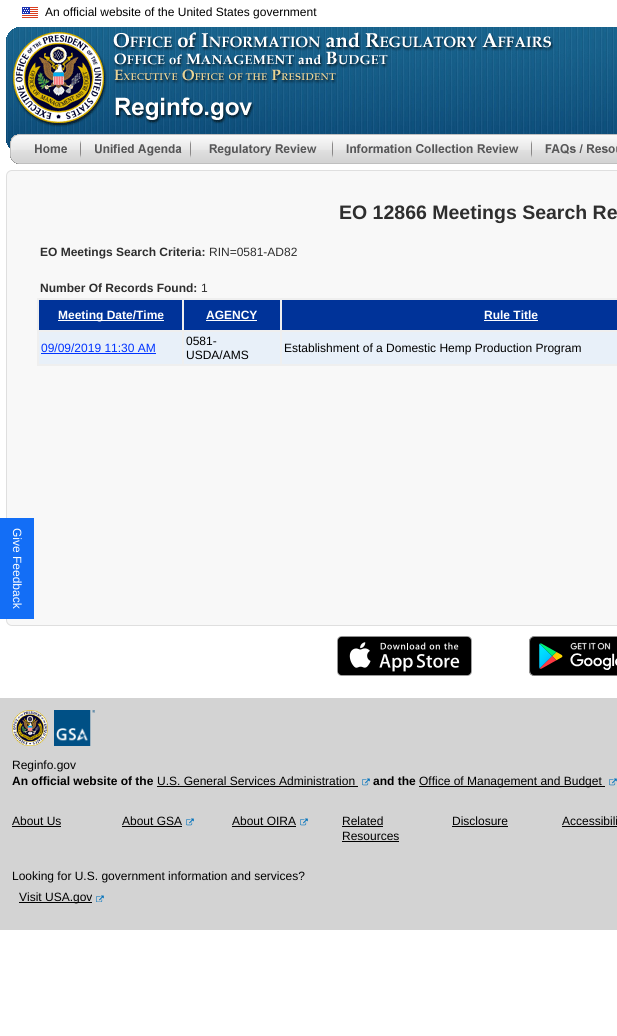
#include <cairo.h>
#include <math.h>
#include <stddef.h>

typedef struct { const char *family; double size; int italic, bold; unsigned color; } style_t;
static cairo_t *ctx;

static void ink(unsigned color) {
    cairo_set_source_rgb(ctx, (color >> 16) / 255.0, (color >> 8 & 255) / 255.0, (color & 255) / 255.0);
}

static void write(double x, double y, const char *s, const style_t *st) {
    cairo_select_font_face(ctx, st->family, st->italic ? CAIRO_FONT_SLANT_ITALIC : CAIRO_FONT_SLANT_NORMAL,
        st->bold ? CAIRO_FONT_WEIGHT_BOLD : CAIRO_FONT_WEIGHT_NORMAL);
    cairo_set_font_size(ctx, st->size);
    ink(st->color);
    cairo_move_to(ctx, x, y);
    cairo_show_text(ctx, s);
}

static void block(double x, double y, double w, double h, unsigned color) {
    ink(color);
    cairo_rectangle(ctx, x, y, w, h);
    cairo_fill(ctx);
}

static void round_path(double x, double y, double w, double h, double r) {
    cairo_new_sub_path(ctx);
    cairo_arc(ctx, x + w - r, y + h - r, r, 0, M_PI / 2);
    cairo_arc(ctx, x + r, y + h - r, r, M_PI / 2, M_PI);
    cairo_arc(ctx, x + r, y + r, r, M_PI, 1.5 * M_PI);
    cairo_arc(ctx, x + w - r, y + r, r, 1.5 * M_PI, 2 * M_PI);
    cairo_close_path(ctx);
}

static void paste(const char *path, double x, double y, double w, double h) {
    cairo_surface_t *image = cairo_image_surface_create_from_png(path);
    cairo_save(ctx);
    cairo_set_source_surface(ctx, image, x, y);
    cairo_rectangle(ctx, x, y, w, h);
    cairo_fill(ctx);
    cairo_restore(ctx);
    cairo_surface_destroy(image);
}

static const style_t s1 = {"Liberation Sans", 12, 0, 0, 0x000000};
static const style_t s2 = {"Liberation Sans", 19.5, 0, 1, 0x2e2e2e};
static const style_t s3 = {"Liberation Sans", 12, 0, 1, 0x2e2e2e};
static const style_t s4 = {"Liberation Sans", 12, 0, 0, 0x2e2e2e};
static const style_t s5 = {"Liberation Sans", 12, 0, 1, 0xffffff};
static const style_t s6 = {"Liberation Sans", 12, 0, 0, 0x0033ff};
static const style_t s7 = {"Liberation Sans", 12, 0, 1, 0x000000};
static const style_t s8 = {"Liberation Sans", 12, 0, 0, 0xffffff};

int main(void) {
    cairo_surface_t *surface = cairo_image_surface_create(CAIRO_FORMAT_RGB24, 617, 1036);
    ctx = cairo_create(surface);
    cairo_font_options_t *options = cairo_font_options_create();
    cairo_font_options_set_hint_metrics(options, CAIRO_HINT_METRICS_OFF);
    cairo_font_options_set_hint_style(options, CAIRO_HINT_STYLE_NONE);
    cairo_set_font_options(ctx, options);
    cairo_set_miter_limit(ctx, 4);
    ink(0xffffff);
    cairo_paint(ctx);
    paste("pic1.png", 22, 7, 16, 11);
    write(45, 16, "An official website of the United States government", &s1);
    paste("pic2.png", 6, 27, 611, 125);
    paste("pic3.png", 10, 134, 70, 30);
    paste("pic4.png", 80, 134, 110, 30);
    paste("pic5.png", 190, 134, 142, 30);
    paste("pic6.png", 332, 134, 199, 30);
    paste("pic7.png", 531, 134, 86, 30);
    ink(0xf8f8f8);
    round_path(6.5, 170.5, 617, 455, 5.5);
    cairo_fill_preserve(ctx);
    ink(0xdfdfdf);
    cairo_set_line_width(ctx, 1);
    cairo_stroke(ctx);
    write(339, 219, "EO 12866 Meetings Search Re", &s2);
    write(40, 256, "EO Meetings Search Criteria:", &s3);
    write(209, 256, "RIN=0581-AD82", &s4);
    write(40, 292, "Number Of Records Found:", &s3);
    write(201, 292, "1", &s4);
    block(37, 298, 580, 68, 0xefefef);
    block(39, 300, 143, 30, 0x003399);
    block(58, 320, 106, 1, 0xffffff);
    write(58, 319, "Meeting Date/Time", &s5);
    block(184, 300, 96, 30, 0x003399);
    write(206, 319, "AGENCY", &s5);
    block(206, 320, 51, 1, 0xffffff);
    block(282, 300, 335, 30, 0x003399);
    write(484, 319, "Rule Title", &s5);
    block(484, 320, 54, 1, 0xffffff);
    block(39, 332, 143, 32, 0xe8f0f9);
    write(41, 352, "09/09/2019 11:30 AM", &s6);
    block(41, 353, 115, 1, 0x0033ff);
    block(184, 332, 96, 32, 0xe8f0f9);
    write(186, 345, "0581-", &s1);
    write(186, 359, "USDA/AMS", &s1);
    block(282, 332, 335, 32, 0xe8f0f9);
    write(284, 352, "Establishment of a Domestic Hemp Production Program", &s1);
    paste("pic8.png", 337, 636, 135, 40);
    paste("pic9.png", 529, 636, 88, 40);
    block(0, 698, 617, 232, 0xd3d3d3);
    paste("pic10.png", 12, 710, 36, 36);
    paste("pic11.png", 54, 710, 41, 36);
    write(12, 769, "Reginfo.gov", &s1);
    write(12, 785, "An official website of the", &s7);
    write(157, 785, "U.S. General Services Administration", &s1);
    block(157, 786, 201, 1, 0x000000);
    paste("pic12.png", 362, 778, 8, 8);
    write(373, 785, "and the", &s7);
    block(419, 786, 186, 1, 0x000000);
    write(419, 785, "Office of Management and Budget", &s1);
    paste("pic12.png", 609, 778, 8, 8);
    write(12, 825, "About Us", &s1);
    block(12, 826, 49, 1, 0x000000);
    write(122, 825, "About GSA", &s1);
    block(122, 826, 60, 1, 0x000000);
    paste("pic12.png", 186, 818, 8, 8);
    write(232, 825, "About OIRA", &s1);
    block(232, 826, 64, 1, 0x000000);
    paste("pic12.png", 300, 818, 8, 8);
    write(342, 825, "Related", &s1);
    block(342, 826, 41, 1, 0x000000);
    write(342, 840, "Resources", &s1);
    block(342, 841, 57, 1, 0x000000);
    write(452, 825, "Disclosure", &s1);
    block(452, 826, 56, 1, 0x000000);
    write(562, 825, "Accessibili", &s1);
    block(562, 826, 55, 1, 0x000000);
    write(12, 880, "Looking for U.S. government information and services?", &s1);
    block(19, 902, 73, 1, 0x000000);
    write(19, 901, "Visit USA.gov", &s1);
    paste("pic13.png", 96, 895, 8, 7);
    block(0, 518, 34, 101, 0x136ef6);
    cairo_save(ctx);
    cairo_translate(ctx, 13, 528);
    cairo_rotate(ctx, 90 * M_PI / 180);
    write(0, 0, "Give Feedback", &s8);
    cairo_restore(ctx);
    cairo_surface_write_to_png(surface, "screenshot.png");
    cairo_font_options_destroy(options);
    cairo_destroy(ctx);
    cairo_surface_destroy(surface);
    return 0;
}
